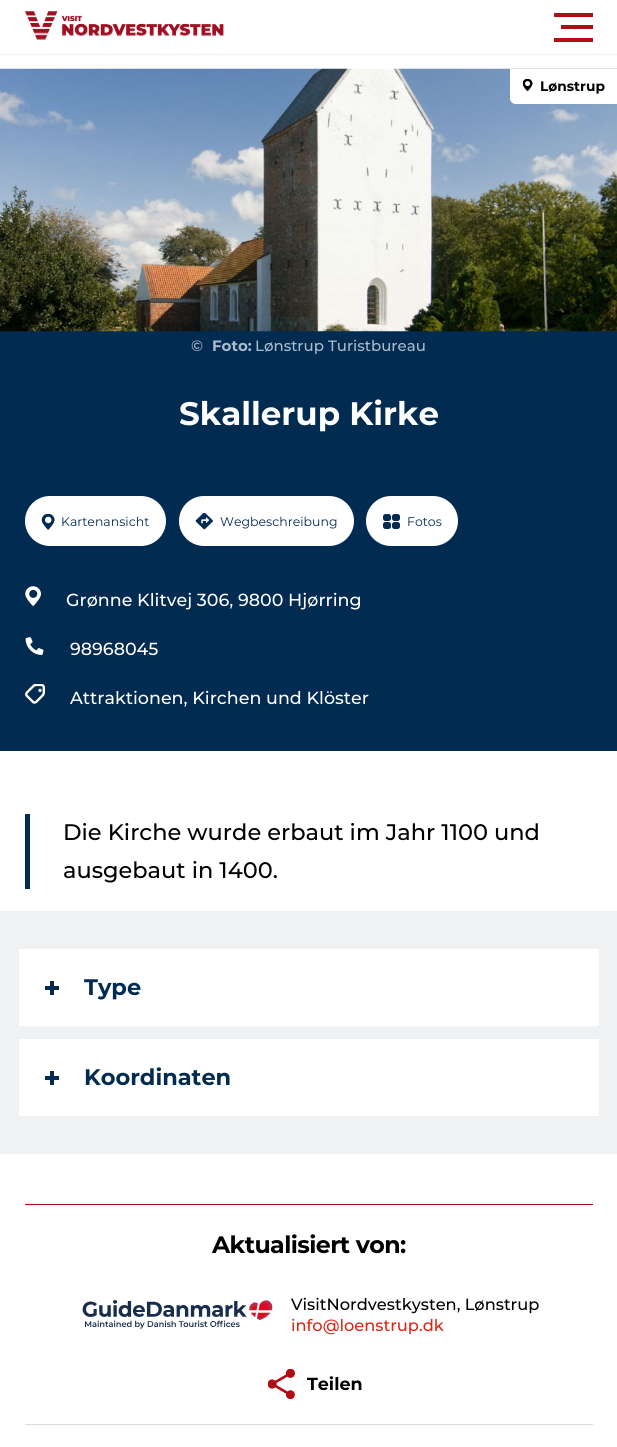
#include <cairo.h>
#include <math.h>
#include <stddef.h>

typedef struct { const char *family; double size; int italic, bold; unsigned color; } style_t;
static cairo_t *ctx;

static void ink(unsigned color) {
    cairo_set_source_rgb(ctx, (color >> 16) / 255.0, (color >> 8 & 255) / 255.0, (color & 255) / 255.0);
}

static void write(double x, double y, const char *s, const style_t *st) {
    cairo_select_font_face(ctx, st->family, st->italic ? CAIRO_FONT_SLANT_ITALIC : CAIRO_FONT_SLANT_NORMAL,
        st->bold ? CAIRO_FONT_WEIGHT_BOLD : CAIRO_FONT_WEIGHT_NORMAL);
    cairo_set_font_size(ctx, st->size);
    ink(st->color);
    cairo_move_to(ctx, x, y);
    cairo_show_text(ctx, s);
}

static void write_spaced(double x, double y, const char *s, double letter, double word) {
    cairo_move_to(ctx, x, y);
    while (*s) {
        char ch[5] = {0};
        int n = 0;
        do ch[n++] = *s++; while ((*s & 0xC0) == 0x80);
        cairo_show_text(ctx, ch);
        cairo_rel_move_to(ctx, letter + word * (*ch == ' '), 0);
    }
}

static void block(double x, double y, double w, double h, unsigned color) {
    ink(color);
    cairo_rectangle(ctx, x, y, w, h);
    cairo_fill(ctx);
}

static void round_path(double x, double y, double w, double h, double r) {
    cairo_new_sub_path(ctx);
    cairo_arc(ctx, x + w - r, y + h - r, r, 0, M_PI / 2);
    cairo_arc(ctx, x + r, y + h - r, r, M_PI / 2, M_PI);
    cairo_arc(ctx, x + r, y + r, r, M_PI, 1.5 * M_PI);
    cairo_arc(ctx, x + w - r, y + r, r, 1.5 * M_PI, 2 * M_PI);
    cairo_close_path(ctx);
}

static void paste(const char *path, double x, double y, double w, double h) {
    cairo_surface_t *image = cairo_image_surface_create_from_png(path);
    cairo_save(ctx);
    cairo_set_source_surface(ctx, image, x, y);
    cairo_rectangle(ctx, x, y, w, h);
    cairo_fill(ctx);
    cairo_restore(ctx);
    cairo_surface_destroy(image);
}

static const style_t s1 = {"Montserrat", 13.75, 0, 1, 0x000000};
static const style_t s2 = {"Montserrat Medium", 15, 0, 0, 0xaabccd};
static const style_t s3 = {"Montserrat", 15, 0, 1, 0xaabccd};
static const style_t s4 = {"Montserrat", 32.5, 0, 1, 0xffffff};
static const style_t s5 = {"Montserrat", 12.5, 0, 0, 0x022b52};
static const style_t s6 = {"Montserrat Medium", 17.5, 0, 0, 0xffffff};
static const style_t s7 = {"Montserrat Medium", 22.5, 0, 0, 0x000000};
static const style_t s8 = {"Montserrat", 22.5, 0, 1, 0x022b52};
static const style_t s9 = {"Montserrat Medium", 16.25, 0, 0, 0x000000};
static const style_t s10 = {"Montserrat Medium", 16.25, 0, 0, 0xdd2515};
static const style_t s11 = {"Montserrat", 17.5, 0, 1, 0x000000};

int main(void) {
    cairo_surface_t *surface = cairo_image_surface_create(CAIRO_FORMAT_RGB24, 617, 1447);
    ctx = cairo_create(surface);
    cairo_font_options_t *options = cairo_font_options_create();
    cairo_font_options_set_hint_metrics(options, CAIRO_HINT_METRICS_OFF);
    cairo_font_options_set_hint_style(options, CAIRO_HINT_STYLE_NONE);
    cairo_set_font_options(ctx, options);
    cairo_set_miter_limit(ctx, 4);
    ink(0xffffff);
    cairo_paint(ctx);
    block(0, 54, 617, 1, 0xf0f1f3);
    paste("pic1.png", 25, 11, 199, 29);
    block(554, 13, 39, 4, 0xb00e14);
    block(561, 25, 32, 4, 0xb00e14);
    block(554, 38, 39, 4, 0xb00e14);
    block(0, 331, 617, 420, 0x022b52);
    paste("pic2.png", 0, 68, 617, 264);
    ink(0xffffff);
    cairo_new_path(ctx);
    cairo_move_to(ctx, 510, 69);
    cairo_line_to(ctx, 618, 69);
    cairo_line_to(ctx, 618, 104);
    cairo_line_to(ctx, 516, 104);
    cairo_curve_to(ctx, 512.5, 104, 510, 101.5, 510, 98);
    cairo_close_path(ctx);
    cairo_fill(ctx);
    paste("pic3.png", 523, 79, 10, 12);
    write(540, 91, "Lønstrup", &s1);
    write(191, 351, "©", &s2);
    write(212, 351, "Foto:", &s3);
    write(255, 351, "Lønstrup Turistbureau", &s2);
    write(179, 425, "Skallerup Kirke", &s4);
    round_path(25, 496, 141, 50, 25);
    cairo_fill(ctx);
    paste("pic4.png", 41, 514, 14, 16);
    write(61, 526, "Kartenansicht", &s5);
    ink(0xffffff);
    round_path(179, 496, 175, 50, 25);
    cairo_fill(ctx);
    paste("pic5.png", 195, 513, 18, 17);
    write(220, 526, "Wegbeschreibung", &s5);
    ink(0xffffff);
    round_path(366, 496, 92, 50, 25);
    cairo_fill(ctx);
    paste("pic6.png", 383, 514, 17, 15);
    write(407, 526, "Fotos", &s5);
    paste("pic7.png", 25, 586, 16, 20);
    write(66, 606, "Grønne Klitvej 306, 9800 Hjørring", &s6);
    paste("pic8.png", 25, 637, 19, 18);
    write(70, 655, "98968045", &s6);
    paste("pic9.png", 25, 684, 20, 20);
    write(70, 704, "Attraktionen, Kirchen und Klöster", &s6);
    block(25, 814, 5, 75, 0x022b52);
    write(63, 840, "Die Kirche wurde erbaut im Jahr 1100 und", &s7);
    write(63, 878, "ausgebaut in 1400.", &s7);
    block(0, 911, 617, 243, 0xeff1f3);
    block(19, 949, 580, 77, 0xffffff);
    block(45, 986, 14, 4, 0x022b52);
    block(50, 981, 4, 14, 0x022b52);
    write(84, 995, "Type", &s8);
    block(19, 1039, 580, 77, 0xffffff);
    block(45, 1076, 14, 4, 0x022b52);
    block(50, 1071, 4, 14, 0x022b52);
    write(84, 1085, "Koordinaten", &s8);
    block(25, 1204, 568, 1, 0xb00e14);
    block(25, 1424, 568, 1, 0xdedcda);
    cairo_set_font_size(ctx, 23.75);
    ink(0x000000);
    write_spaced(212, 1253, "Aktualisiert von:", -0.6, 0);
    paste("pic10.png", 82, 1300, 191, 29);
    write(291, 1310, "VisitNordvestkysten, Lønstrup", &s9);
    write(291, 1331, "info@loenstrup.dk", &s10);
    paste("pic11.png", 268, 1369, 27, 30);
    write(307, 1390, "Teilen", &s11);
    cairo_surface_write_to_png(surface, "screenshot.png");
    cairo_font_options_destroy(options);
    cairo_destroy(ctx);
    cairo_surface_destroy(surface);
    return 0;
}
